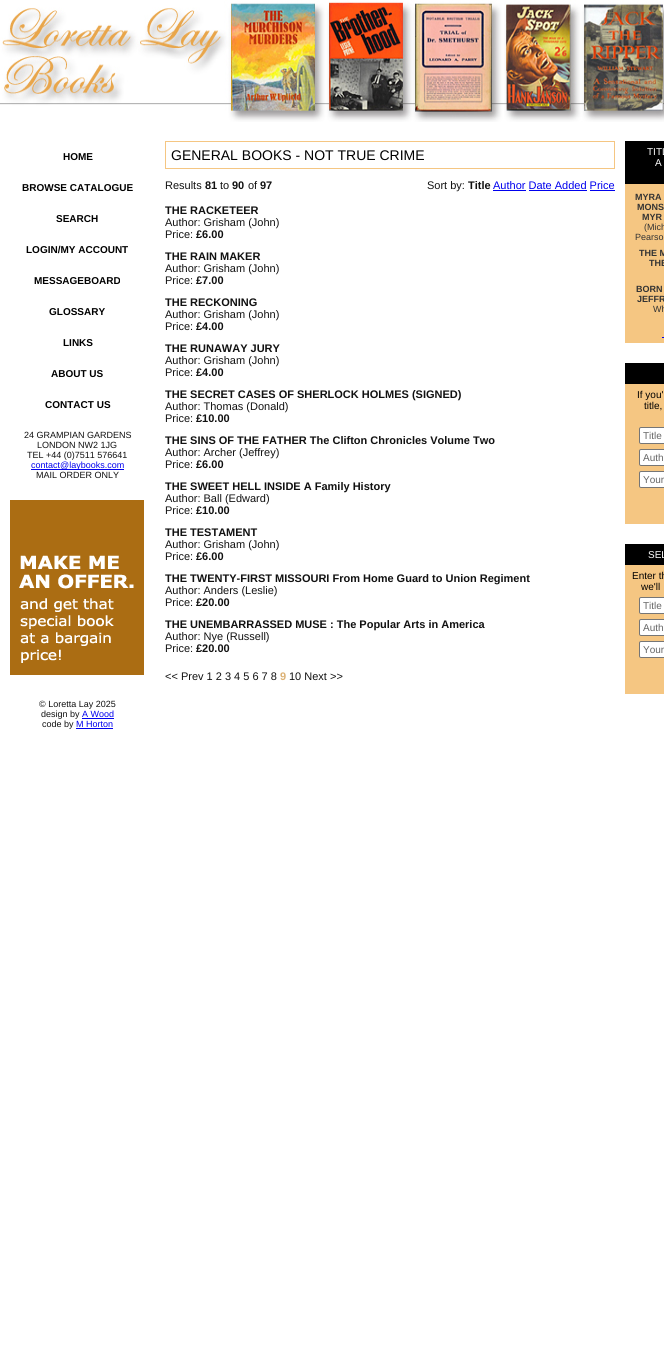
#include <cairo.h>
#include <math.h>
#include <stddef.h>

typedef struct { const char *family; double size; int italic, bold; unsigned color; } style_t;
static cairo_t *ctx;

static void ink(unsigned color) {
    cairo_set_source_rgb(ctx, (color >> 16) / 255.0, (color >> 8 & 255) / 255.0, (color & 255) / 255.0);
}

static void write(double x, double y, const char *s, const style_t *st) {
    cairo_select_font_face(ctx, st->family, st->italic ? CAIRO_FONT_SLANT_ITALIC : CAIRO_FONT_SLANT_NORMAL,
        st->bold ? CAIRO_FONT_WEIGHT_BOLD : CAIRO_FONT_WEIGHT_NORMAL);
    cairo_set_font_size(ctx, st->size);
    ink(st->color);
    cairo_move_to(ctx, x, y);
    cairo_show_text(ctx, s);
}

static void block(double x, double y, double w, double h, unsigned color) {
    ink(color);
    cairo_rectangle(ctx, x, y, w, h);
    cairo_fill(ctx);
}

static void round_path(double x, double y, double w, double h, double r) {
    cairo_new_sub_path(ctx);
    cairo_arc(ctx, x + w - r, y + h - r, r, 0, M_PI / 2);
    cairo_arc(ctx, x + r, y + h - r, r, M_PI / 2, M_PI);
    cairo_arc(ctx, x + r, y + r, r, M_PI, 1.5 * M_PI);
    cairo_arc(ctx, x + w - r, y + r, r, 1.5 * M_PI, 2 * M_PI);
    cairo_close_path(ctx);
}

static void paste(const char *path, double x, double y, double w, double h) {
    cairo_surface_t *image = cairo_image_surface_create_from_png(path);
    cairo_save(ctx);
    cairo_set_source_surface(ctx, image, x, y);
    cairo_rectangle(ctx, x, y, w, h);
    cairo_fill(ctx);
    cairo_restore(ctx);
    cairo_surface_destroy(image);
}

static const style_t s1 = {"Liberation Sans", 10, 0, 1, 0x000000};
static const style_t s2 = {"Liberation Sans", 9, 0, 0, 0x111111};
static const style_t s3 = {"Liberation Sans", 9, 0, 0, 0x0000ee};
static const style_t s4 = {"Liberation Sans", 14, 0, 0, 0x000000};
static const style_t s5 = {"Liberation Sans", 11, 0, 0, 0x111111};
static const style_t s6 = {"Liberation Sans", 11, 0, 1, 0x111111};
static const style_t s7 = {"Liberation Sans", 11, 0, 0, 0x0000ee};
static const style_t s8 = {"Liberation Sans", 11, 0, 1, 0xdcb174};
static const style_t s9 = {"Liberation Sans", 10, 0, 0, 0xffffff};
static const style_t s10 = {"Liberation Sans", 9, 0, 1, 0x333333};
static const style_t s11 = {"Liberation Sans", 9, 0, 0, 0x333333};
static const style_t s12 = {"Liberation Sans", 10, 0, 0, 0x000000};
static const style_t s13 = {"Liberation Sans", 10, 0, 0, 0x666666};

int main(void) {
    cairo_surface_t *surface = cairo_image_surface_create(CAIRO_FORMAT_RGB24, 664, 1364);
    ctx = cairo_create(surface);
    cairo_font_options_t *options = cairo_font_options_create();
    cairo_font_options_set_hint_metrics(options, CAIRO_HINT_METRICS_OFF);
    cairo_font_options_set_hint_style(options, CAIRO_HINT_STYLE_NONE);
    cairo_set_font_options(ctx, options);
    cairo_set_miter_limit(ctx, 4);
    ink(0xffffff);
    cairo_paint(ctx);
    paste("pic1.png", 0, 0, 664, 122);
    write(63, 160, "HOME", &s1);
    write(22, 191, "BROWSE CATALOGUE", &s1);
    write(56, 222, "SEARCH", &s1);
    write(26, 253, "LOGIN/MY ACCOUNT", &s1);
    write(34, 284, "MESSAGEBOARD", &s1);
    write(49, 315, "GLOSSARY", &s1);
    write(63, 346, "LINKS", &s1);
    write(51, 377, "ABOUT US", &s1);
    write(45, 408, "CONTACT US", &s1);
    write(24, 438, "24 GRAMPIAN GARDENS", &s2);
    write(37, 448, "LONDON NW2 1JG", &s2);
    write(27, 458, "TEL +44 (0)7511 576641", &s2);
    block(31, 469, 93, 1, 0x0000ee);
    write(31, 468, "contact@laybooks.com", &s3);
    write(36, 478, "MAIL ORDER ONLY", &s2);
    paste("pic2.png", 10, 500, 134, 175);
    write(39, 707, "© Loretta Lay 2025", &s2);
    write(41, 717, "design by", &s2);
    write(82, 717, "A Wood", &s3);
    block(82, 718, 32, 1, 0x0000ee);
    write(42, 727, "code by", &s2);
    write(76, 727, "M Horton", &s3);
    block(76, 728, 37, 1, 0x0000ee);
    cairo_rectangle(ctx, 165.5, 141.5, 449, 27);
    ink(0xf5c682);
    cairo_set_line_width(ctx, 1);
    cairo_stroke(ctx);
    write(171, 160, "GENERAL BOOKS - NOT TRUE CRIME", &s4);
    write(165, 189, "Results", &s5);
    write(205, 189, "81", &s6);
    write(220, 189, "to", &s5);
    write(232, 189, "90", &s6);
    write(248, 189, "of", &s5);
    write(260, 189, "97", &s6);
    write(427, 189, "Sort by:", &s5);
    write(468, 189, "Title", &s6);
    write(493, 189, "Author Date Added Price", &s7);
    block(493, 190, 33, 1, 0x0000ee);
    block(529, 190, 58, 1, 0x0000ee);
    block(590, 190, 25, 1, 0x0000ee);
    write(165, 214, "THE RACKETEER", &s6);
    write(165, 226, "Author: Grisham (John)", &s5);
    write(165, 238, "Price:", &s5);
    write(196, 238, "£6.00", &s6);
    write(165, 260, "THE RAIN MAKER", &s6);
    write(165, 272, "Author: Grisham (John)", &s5);
    write(165, 284, "Price:", &s5);
    write(196, 284, "£7.00", &s6);
    write(165, 306, "THE RECKONING", &s6);
    write(165, 318, "Author: Grisham (John)", &s5);
    write(165, 330, "Price:", &s5);
    write(196, 330, "£4.00", &s6);
    write(165, 352, "THE RUNAWAY JURY", &s6);
    write(165, 364, "Author: Grisham (John)", &s5);
    write(165, 376, "Price:", &s5);
    write(196, 376, "£4.00", &s6);
    write(165, 398, "THE SECRET CASES OF SHERLOCK HOLMES (SIGNED)", &s6);
    write(165, 410, "Author: Thomas (Donald)", &s5);
    write(165, 422, "Price:", &s5);
    write(196, 422, "£10.00", &s6);
    write(165, 444, "THE SINS OF THE FATHER The Clifton Chronicles Volume Two", &s6);
    write(165, 456, "Author: Archer (Jeffrey)", &s5);
    write(165, 468, "Price:", &s5);
    write(196, 468, "£6.00", &s6);
    write(165, 490, "THE SWEET HELL INSIDE A Family History", &s6);
    write(165, 502, "Author: Ball (Edward)", &s5);
    write(165, 514, "Price:", &s5);
    write(196, 514, "£10.00", &s6);
    write(165, 536, "THE TESTAMENT", &s6);
    write(165, 548, "Author: Grisham (John)", &s5);
    write(165, 560, "Price:", &s5);
    write(196, 560, "£6.00", &s6);
    write(165, 582, "THE TWENTY-FIRST MISSOURI From Home Guard to Union Regiment", &s6);
    write(165, 594, "Author: Anders (Leslie)", &s5);
    write(165, 606, "Price:", &s5);
    write(196, 606, "£20.00", &s6);
    write(165, 628, "THE UNEMBARRASSED MUSE : The Popular Arts in America", &s6);
    write(165, 640, "Author: Nye (Russell)", &s5);
    write(165, 652, "Price:", &s5);
    write(196, 652, "£20.00", &s6);
    write(165, 680, "<< Prev 1 2 3 4 5 6 7 8", &s5);
    write(280, 680, "9", &s8);
    write(289, 680, "10 Next >>", &s5);
    block(625, 141, 39, 43, 0x000000);
    write(647, 155, "TITL", &s9);
    write(655, 166, "A", &s9);
    block(625, 184, 39, 159, 0xf5c682);
    write(635, 200, "MYRA", &s10);
    write(637, 210, "MONS", &s10);
    write(642, 220, "MYR", &s10);
    write(644, 230, "(Mich", &s11);
    write(635, 240, "Pearso", &s11);
    write(639, 256, "THE M", &s10);
    write(649, 266, "THE", &s10);
    write(636, 292, "BORN", &s10);
    write(637, 302, "JEFFR", &s10);
    write(653, 312, "Wh", &s11);
    block(662, 337, 2, 1, 0x0000ee);
    block(625, 363, 39, 21, 0x000000);
    block(625, 384, 39, 140, 0xf5c682);
    write(637, 398, "If you'", &s12);
    write(644, 409, "title,", &s12);
    ink(0xffffff);
    round_path(639.5, 427.5, 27, 16, 1.5);
    cairo_fill_preserve(ctx);
    ink(0x767676);
    cairo_stroke(ctx);
    write(643, 439, "Title", &s13);
    ink(0xffffff);
    round_path(639.5, 449.5, 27, 16, 1.5);
    cairo_fill_preserve(ctx);
    ink(0x767676);
    cairo_stroke(ctx);
    write(643, 461, "Auth", &s13);
    ink(0xffffff);
    round_path(639.5, 471.5, 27, 16, 1.5);
    cairo_fill_preserve(ctx);
    ink(0x767676);
    cairo_stroke(ctx);
    write(643, 483, "Your", &s13);
    block(625, 544, 39, 21, 0x000000);
    write(648, 558, "SEL", &s9);
    block(625, 565, 39, 129, 0xf5c682);
    write(632, 579, "Enter th", &s12);
    write(641, 590, "we'll", &s12);
    ink(0xffffff);
    round_path(639.5, 597.5, 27, 16, 1.5);
    cairo_fill_preserve(ctx);
    ink(0x767676);
    cairo_stroke(ctx);
    write(643, 609, "Title", &s13);
    ink(0xffffff);
    round_path(639.5, 619.5, 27, 16, 1.5);
    cairo_fill_preserve(ctx);
    ink(0x767676);
    cairo_stroke(ctx);
    write(643, 631, "Auth", &s13);
    ink(0xffffff);
    round_path(639.5, 641.5, 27, 16, 1.5);
    cairo_fill_preserve(ctx);
    ink(0x767676);
    cairo_stroke(ctx);
    write(643, 653, "Your", &s13);
    cairo_surface_write_to_png(surface, "screenshot.png");
    cairo_font_options_destroy(options);
    cairo_destroy(ctx);
    cairo_surface_destroy(surface);
    return 0;
}
